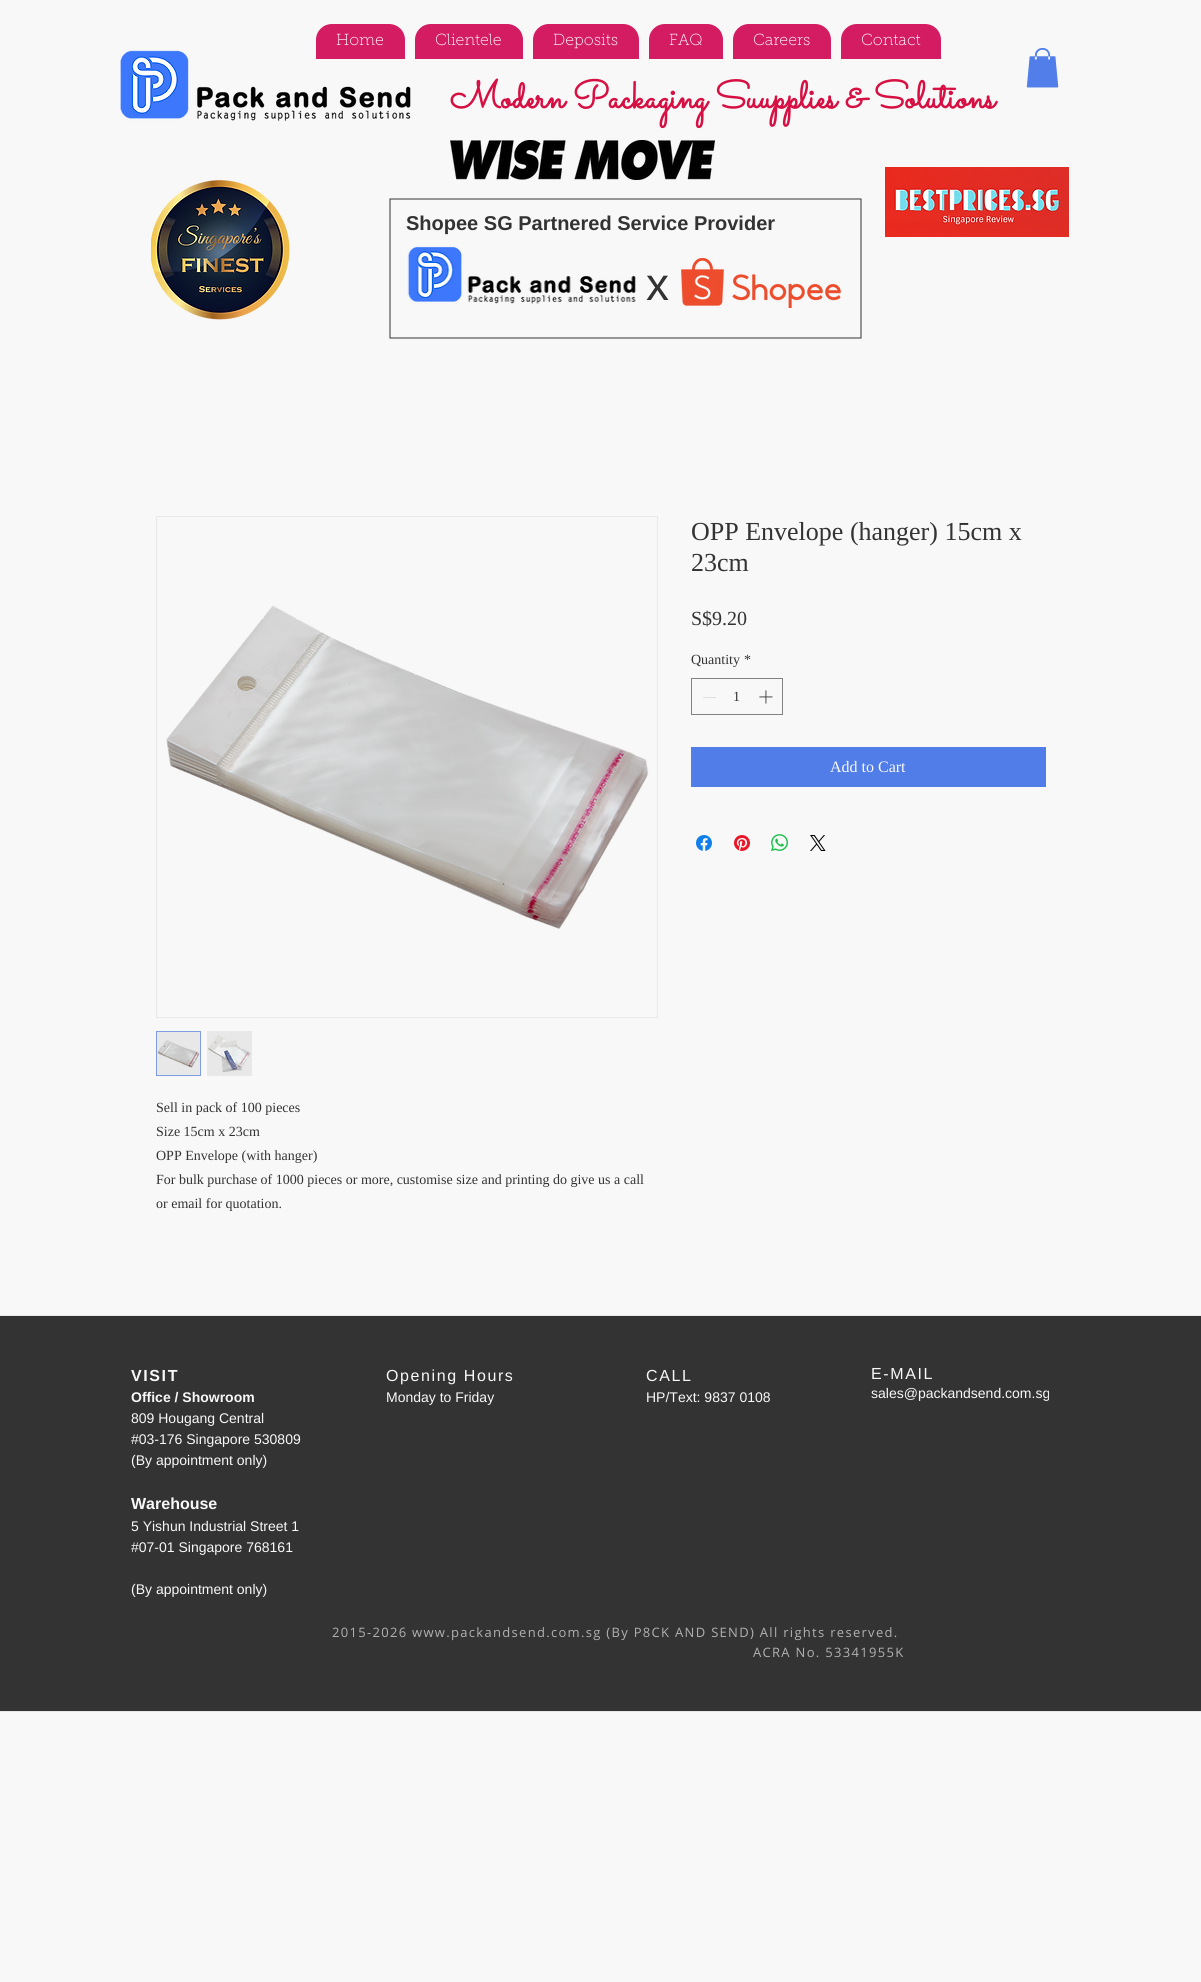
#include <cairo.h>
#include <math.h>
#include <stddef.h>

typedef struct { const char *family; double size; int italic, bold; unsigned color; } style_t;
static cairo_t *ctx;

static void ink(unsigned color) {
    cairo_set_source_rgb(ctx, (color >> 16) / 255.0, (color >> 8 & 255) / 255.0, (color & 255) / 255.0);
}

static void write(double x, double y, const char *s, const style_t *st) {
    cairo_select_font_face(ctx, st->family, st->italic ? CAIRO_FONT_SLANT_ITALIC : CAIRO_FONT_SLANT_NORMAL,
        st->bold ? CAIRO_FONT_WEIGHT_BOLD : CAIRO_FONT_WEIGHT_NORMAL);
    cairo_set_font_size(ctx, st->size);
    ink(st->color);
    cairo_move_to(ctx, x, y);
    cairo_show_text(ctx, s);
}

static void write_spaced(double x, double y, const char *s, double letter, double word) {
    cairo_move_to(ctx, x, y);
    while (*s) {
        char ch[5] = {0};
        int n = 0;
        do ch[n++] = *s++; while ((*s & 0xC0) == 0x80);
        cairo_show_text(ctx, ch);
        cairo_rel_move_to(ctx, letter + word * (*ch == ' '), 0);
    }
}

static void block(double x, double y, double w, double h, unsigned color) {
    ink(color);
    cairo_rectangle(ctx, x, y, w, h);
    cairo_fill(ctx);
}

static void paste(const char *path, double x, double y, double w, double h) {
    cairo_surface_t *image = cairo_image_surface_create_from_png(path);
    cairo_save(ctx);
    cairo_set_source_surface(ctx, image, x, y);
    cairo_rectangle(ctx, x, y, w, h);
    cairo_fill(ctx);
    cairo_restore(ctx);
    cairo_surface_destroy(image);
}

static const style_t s1 = {"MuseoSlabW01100 Thin", 16, 0, 0, 0xffffff};
static const style_t s2 = {"Sacramento", 38, 0, 1, 0xd61043};
static const style_t s3 = {"Liberation Sans", 20, 0, 1, 0x333333};
static const style_t s4 = {"Liberation Sans", 46, 0, 0, 0x333333};
static const style_t s5 = {"Liberation Serif", 26, 0, 0, 0x333333};
static const style_t s6 = {"Liberation Serif", 20, 0, 0, 0x333333};
static const style_t s7 = {"Liberation Serif", 14, 0, 0, 0x333333};
static const style_t s8 = {"Liberation Serif", 16, 0, 0, 0xf8f8f8};
static const style_t s9 = {"Liberation Sans", 14, 0, 1, 0xf8f8f8};
static const style_t s10 = {"Liberation Sans", 14, 0, 0, 0xf8f8f8};
static const style_t s11 = {"Liberation Sans", 16, 0, 1, 0xf8f8f8};

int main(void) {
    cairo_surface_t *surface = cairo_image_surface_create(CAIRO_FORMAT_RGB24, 1201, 1982);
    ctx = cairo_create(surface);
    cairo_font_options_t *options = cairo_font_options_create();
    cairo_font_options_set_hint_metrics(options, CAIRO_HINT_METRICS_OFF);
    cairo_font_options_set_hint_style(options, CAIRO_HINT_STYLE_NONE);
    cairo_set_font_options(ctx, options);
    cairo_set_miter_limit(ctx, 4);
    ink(0xf8f8f8);
    cairo_paint(ctx);
    ink(0xd41c62);
    cairo_new_path(ctx);
    cairo_move_to(ctx, 332, 24);
    cairo_line_to(ctx, 389, 24);
    cairo_curve_to(ctx, 398, 24, 405, 31, 405, 40);
    cairo_line_to(ctx, 405, 59);
    cairo_line_to(ctx, 316, 59);
    cairo_line_to(ctx, 316, 40);
    cairo_curve_to(ctx, 316, 31, 323, 24, 332, 24);
    cairo_close_path(ctx);
    cairo_fill(ctx);
    write(336, 45, "Home", &s1);
    ink(0xd41c62);
    cairo_new_path(ctx);
    cairo_move_to(ctx, 431, 24);
    cairo_line_to(ctx, 507, 24);
    cairo_curve_to(ctx, 516, 24, 523, 31, 523, 40);
    cairo_line_to(ctx, 523, 59);
    cairo_line_to(ctx, 415, 59);
    cairo_line_to(ctx, 415, 40);
    cairo_curve_to(ctx, 415, 31, 422, 24, 431, 24);
    cairo_close_path(ctx);
    cairo_fill(ctx);
    write(435, 45, "Clientele", &s1);
    ink(0xd41c62);
    cairo_new_path(ctx);
    cairo_move_to(ctx, 549, 24);
    cairo_line_to(ctx, 623, 24);
    cairo_curve_to(ctx, 632, 24, 639, 31, 639, 40);
    cairo_line_to(ctx, 639, 59);
    cairo_line_to(ctx, 533, 59);
    cairo_line_to(ctx, 533, 40);
    cairo_curve_to(ctx, 533, 31, 540, 24, 549, 24);
    cairo_close_path(ctx);
    cairo_fill(ctx);
    write(553, 45, "Deposits", &s1);
    ink(0xd41c62);
    cairo_new_path(ctx);
    cairo_move_to(ctx, 665, 24);
    cairo_line_to(ctx, 707, 24);
    cairo_curve_to(ctx, 716, 24, 723, 31, 723, 40);
    cairo_line_to(ctx, 723, 59);
    cairo_line_to(ctx, 649, 59);
    cairo_line_to(ctx, 649, 40);
    cairo_curve_to(ctx, 649, 31, 656, 24, 665, 24);
    cairo_close_path(ctx);
    cairo_fill(ctx);
    write(669, 45, "FAQ", &s1);
    ink(0xd41c62);
    cairo_new_path(ctx);
    cairo_move_to(ctx, 749, 24);
    cairo_line_to(ctx, 815, 24);
    cairo_curve_to(ctx, 824, 24, 831, 31, 831, 40);
    cairo_line_to(ctx, 831, 59);
    cairo_line_to(ctx, 733, 59);
    cairo_line_to(ctx, 733, 40);
    cairo_curve_to(ctx, 733, 31, 740, 24, 749, 24);
    cairo_close_path(ctx);
    cairo_fill(ctx);
    write(753, 45, "Careers", &s1);
    ink(0xd41c62);
    cairo_new_path(ctx);
    cairo_move_to(ctx, 857, 24);
    cairo_line_to(ctx, 925, 24);
    cairo_curve_to(ctx, 934, 24, 941, 31, 941, 40);
    cairo_line_to(ctx, 941, 59);
    cairo_line_to(ctx, 841, 59);
    cairo_line_to(ctx, 841, 40);
    cairo_curve_to(ctx, 841, 31, 848, 24, 857, 24);
    cairo_close_path(ctx);
    cairo_fill(ctx);
    write(861, 45, "Contact", &s1);
    paste("pic1.png", 120, 50, 291, 71);
    write(450, 108, "Modern Packaging Suupplies & Solutions", &s2);
    paste("pic2.png", 1026, 48, 33, 40);
    paste("pic3.png", 450, 140, 265, 40);
    paste("pic4.png", 151, 180, 139, 140);
    paste("pic6.png", 407, 246, 229, 58);
    paste("pic7.png", 681, 258, 160, 50);
    cairo_new_path(ctx);
    cairo_move_to(ctx, 861, 199);
    cairo_line_to(ctx, 861, 338);
    cairo_line_to(ctx, 390, 338);
    cairo_line_to(ctx, 390, 199);
    cairo_close_path(ctx);
    ink(0x333333);
    cairo_set_line_width(ctx, 1);
    cairo_stroke(ctx);
    paste("pic5.png", 885, 167, 184, 70);
    write(406, 230, "Shopee SG Partnered Service Provider", &s3);
    write(646, 300, "x", &s4);
    write(691, 540, "OPP Envelope (hanger) 15cm x", &s5);
    write(691, 571, "23cm", &s5);
    write(691, 625, "S$9.20", &s6);
    write(691, 664, "Quantity", &s7);
    write(744, 664, "*", &s7);
    cairo_rectangle(ctx, 691.5, 678.5, 91, 36);
    ink(0x828282);
    cairo_stroke(ctx);
    block(703, 697, 13, 1, 0xe0e0e0);
    write(733, 701, "1", &s7);
    paste("pic8.png", 759, 690, 14, 14);
    block(691, 747, 355, 40, 0x517de8);
    write(830, 772, "Add to Cart", &s8);
    paste("pic9.png", 696, 835, 16, 16);
    paste("pic10.png", 734, 835, 16, 16);
    paste("pic11.png", 771, 834, 17, 17);
    paste("pic12.png", 810, 835, 16, 16);
    cairo_rectangle(ctx, 156.5, 516.5, 501, 501);
    ink(0xe8e8e8);
    cairo_stroke(ctx);
    paste("pic13.png", 166, 605, 483, 324);
    cairo_rectangle(ctx, 156.5, 1031.5, 44, 44);
    cairo_fill_preserve(ctx);
    ink(0x7f9ce1);
    cairo_stroke(ctx);
    paste("pic14.png", 157, 1040, 43, 28);
    block(207, 1031, 45, 45, 0xe8e8e8);
    paste("pic15.png", 208, 1035, 43, 38);
    write(156, 1112, "Sell in pack of 100 pieces", &s7);
    write(156, 1136, "Size 15cm x 23cm", &s7);
    write(156, 1160, "OPP Envelope (with hanger)", &s7);
    write(156, 1184, "For bulk purchase of 1000 pieces or more, customise size and printing do give us a call", &s7);
    write(156, 1208, "or email for quotation.", &s7);
    block(0, 1316, 1201, 395, 0x333333);
    block(0, 1315, 1201, 1, 0xe8e8e8);
    block(0, 1711, 1201, 1, 0xe8e8e8);
    cairo_select_font_face(ctx, "Liberation Sans", CAIRO_FONT_SLANT_NORMAL, CAIRO_FONT_WEIGHT_BOLD);
    cairo_set_font_size(ctx, 16);
    ink(0xf8f8f8);
    write_spaced(131, 1381, "VISIT", 1.6, 0);
    write(131, 1402, "Office / Showroom", &s9);
    write(131, 1423, "809 Hougang Central", &s10);
    write(131, 1444, "#03-176 Singapore 530809", &s10);
    write(131, 1465, "(By appointment only)", &s10);
    write(131, 1509, "Warehouse", &s11);
    write(131, 1531, "5 Yishun Industrial Street 1", &s10);
    write(131, 1552, "#07-01 Singapore 768161", &s10);
    write(131, 1594, "(By appointment only)", &s10);
    cairo_set_font_size(ctx, 16);
    write_spaced(386, 1381, "Opening Hours", 1.6, 0);
    write(386, 1402, "Monday to Friday", &s10);
    cairo_set_font_size(ctx, 16);
    write_spaced(646, 1381, "CALL", 1.6, 0);
    write(646, 1402, "HP/Text: 9837 0108", &s10);
    cairo_set_font_size(ctx, 16);
    write_spaced(871, 1379, "E-MAIL", 1.6, 0);
    write(871, 1398, "sales@packandsend.com.sg", &s10);
    cairo_select_font_face(ctx, "Open Sans", CAIRO_FONT_SLANT_NORMAL, CAIRO_FONT_WEIGHT_NORMAL);
    cairo_set_font_size(ctx, 13);
    ink(0xb2b1b1);
    write_spaced(332, 1637, "2015-2026 www.packandsend.com.sg (By P8CK AND SEND) All rights reserved.", 1.3, 0);
    write_spaced(753, 1657, "ACRA No. 53341955K", 1.3, 0);
    cairo_surface_write_to_png(surface, "screenshot.png");
    cairo_font_options_destroy(options);
    cairo_destroy(ctx);
    cairo_surface_destroy(surface);
    return 0;
}
